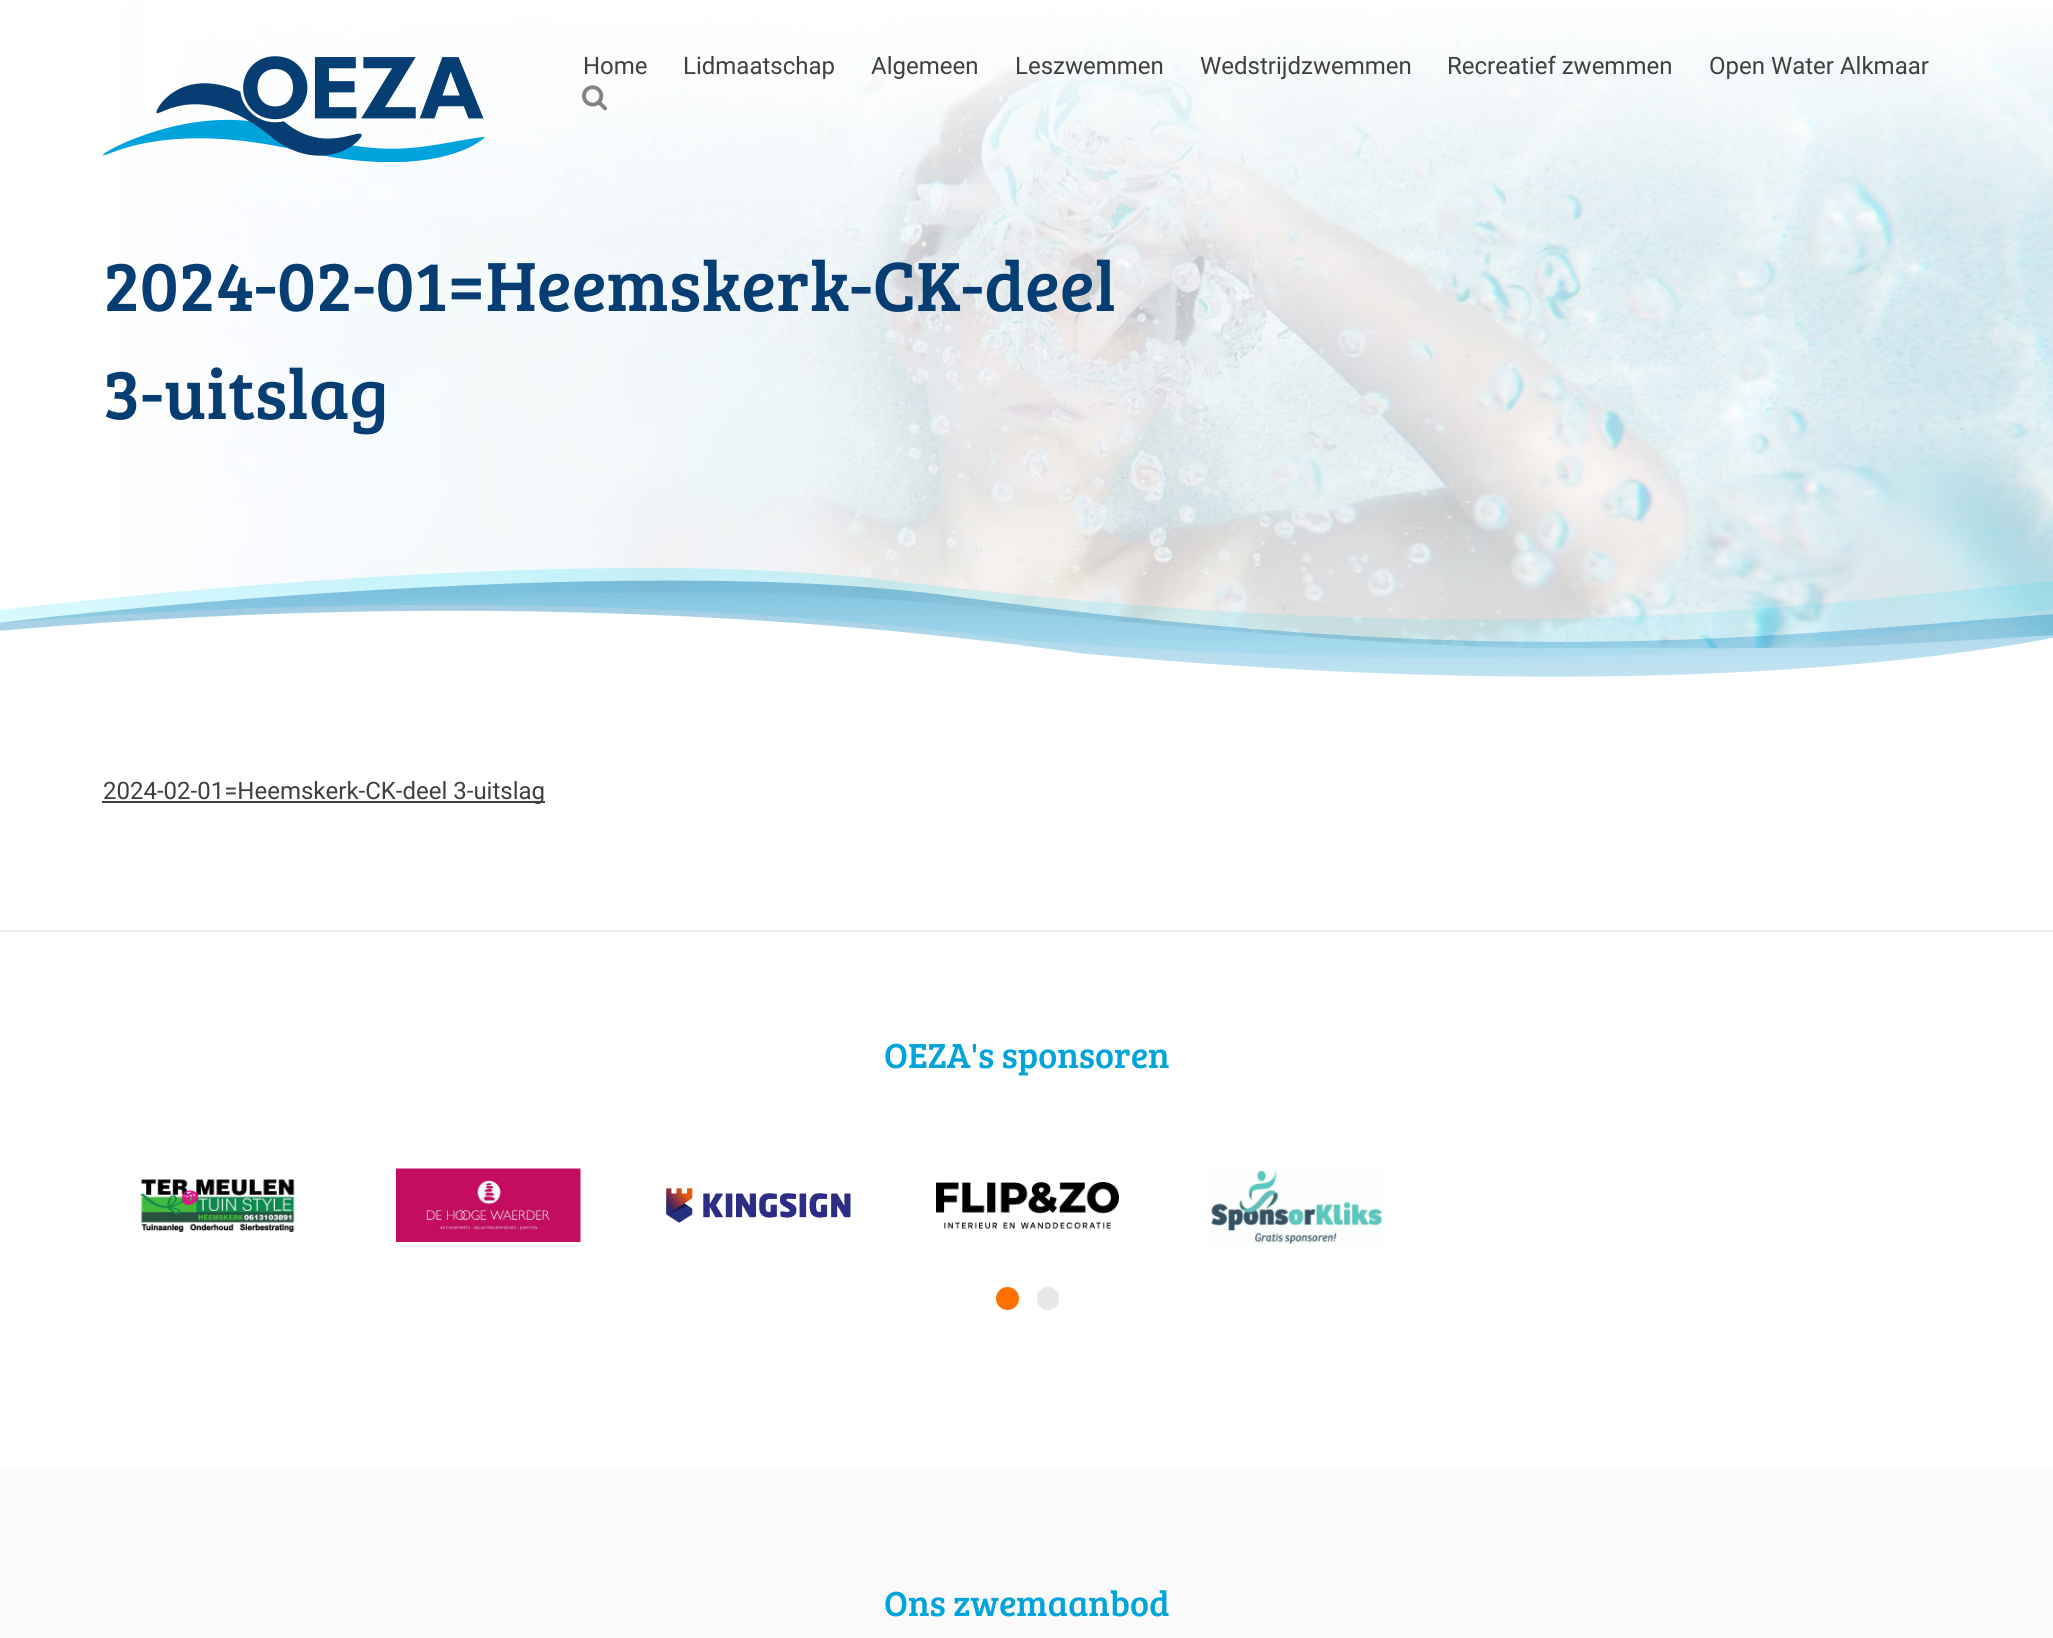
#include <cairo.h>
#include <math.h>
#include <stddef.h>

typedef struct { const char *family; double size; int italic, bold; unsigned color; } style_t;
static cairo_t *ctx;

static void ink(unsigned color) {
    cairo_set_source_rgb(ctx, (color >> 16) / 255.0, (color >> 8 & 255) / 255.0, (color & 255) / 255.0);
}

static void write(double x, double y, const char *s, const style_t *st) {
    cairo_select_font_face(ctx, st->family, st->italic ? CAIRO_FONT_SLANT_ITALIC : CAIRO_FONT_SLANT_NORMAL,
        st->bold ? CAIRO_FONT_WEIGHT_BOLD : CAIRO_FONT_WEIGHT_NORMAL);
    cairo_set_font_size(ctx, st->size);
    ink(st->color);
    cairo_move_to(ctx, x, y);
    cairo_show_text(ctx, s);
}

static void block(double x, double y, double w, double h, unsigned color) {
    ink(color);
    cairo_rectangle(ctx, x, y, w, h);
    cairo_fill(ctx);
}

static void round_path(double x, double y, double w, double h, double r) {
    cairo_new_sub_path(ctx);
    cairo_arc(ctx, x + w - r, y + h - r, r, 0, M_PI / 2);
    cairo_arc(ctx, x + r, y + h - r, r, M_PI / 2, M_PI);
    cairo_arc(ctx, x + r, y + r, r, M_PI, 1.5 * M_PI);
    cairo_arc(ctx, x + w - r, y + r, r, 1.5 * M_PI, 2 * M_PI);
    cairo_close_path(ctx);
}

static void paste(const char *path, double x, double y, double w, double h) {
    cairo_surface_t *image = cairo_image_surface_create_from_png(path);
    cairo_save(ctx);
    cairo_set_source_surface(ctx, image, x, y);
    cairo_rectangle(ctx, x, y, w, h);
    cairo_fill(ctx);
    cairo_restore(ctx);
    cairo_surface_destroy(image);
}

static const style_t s1 = {"Roboto", 24, 0, 0, 0x404040};
static const style_t s2 = {"Bree Serif", 72, 0, 0, 0x063d72};
static const style_t s3 = {"Bree Serif", 36, 0, 0, 0x00a3da};

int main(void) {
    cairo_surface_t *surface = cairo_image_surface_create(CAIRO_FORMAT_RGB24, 2053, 1638);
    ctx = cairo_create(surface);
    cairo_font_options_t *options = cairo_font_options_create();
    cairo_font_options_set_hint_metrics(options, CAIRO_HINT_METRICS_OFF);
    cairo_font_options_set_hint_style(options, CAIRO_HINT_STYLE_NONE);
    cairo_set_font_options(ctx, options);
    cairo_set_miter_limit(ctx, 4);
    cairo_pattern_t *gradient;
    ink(0xffffff);
    cairo_paint(ctx);
    paste("pic1.png", 121, 1, 1932, 647);
    gradient = cairo_pattern_create_linear(1027, 0, 1027, 240);
    cairo_pattern_add_color_stop_rgba(gradient, 0, 1, 1, 1, 1);
    cairo_pattern_add_color_stop_rgba(gradient, 1, 1, 1, 1, 0);
    cairo_set_source(ctx, gradient);
    cairo_pattern_destroy(gradient);
    cairo_rectangle(ctx, 144, 1, 1909, 231);
    cairo_fill(ctx);
    paste("pic2.png", 102, 56, 383, 106);
    write(583, 74, "Home", &s1);
    write(683, 74, "Lidmaatschap", &s1);
    write(871, 74, "Algemeen", &s1);
    write(1015, 74, "Leszwemmen", &s1);
    write(1200, 74, "Wedstrijdzwemmen", &s1);
    write(1447, 74, "Recreatief zwemmen", &s1);
    write(1709, 74, "Open Water Alkmaar", &s1);
    paste("pic3.png", 582, 85, 25, 26);
    write(103, 311, "2024-02-01=Heemskerk-CK-deel", &s2);
    write(103, 419, "3-uitslag", &s2);
    paste("pic4.png", 0, 568, 2053, 109);
    block(102, 801, 443, 2, 0x404040);
    write(103, 799, "2024-02-01=Heemskerk-CK-deel 3-uitslag", &s1);
    block(0, 930, 2053, 2, 0xeaeaea);
    write(884, 1068, "OEZA's sponsoren", &s3);
    paste("pic5.png", 139, 1179, 156, 53);
    paste("pic6.png", 396, 1168, 185, 74);
    paste("pic7.png", 666, 1188, 185, 35);
    paste("pic8.png", 936, 1182, 183, 47);
    paste("pic9.png", 1210, 1170, 173, 75);
    ink(0xff7000);
    cairo_arc(ctx, 1007.5, 1298.5, 11.5, 0, 2 * M_PI);
    cairo_fill(ctx);
    ink(0xe7e7e7);
    round_path(1037, 1287, 22, 23, 11);
    cairo_fill(ctx);
    block(0, 1467, 2053, 171, 0xfafafa);
    write(884, 1616, "Ons zwemaanbod", &s3);
    cairo_surface_write_to_png(surface, "screenshot.png");
    cairo_font_options_destroy(options);
    cairo_destroy(ctx);
    cairo_surface_destroy(surface);
    return 0;
}
